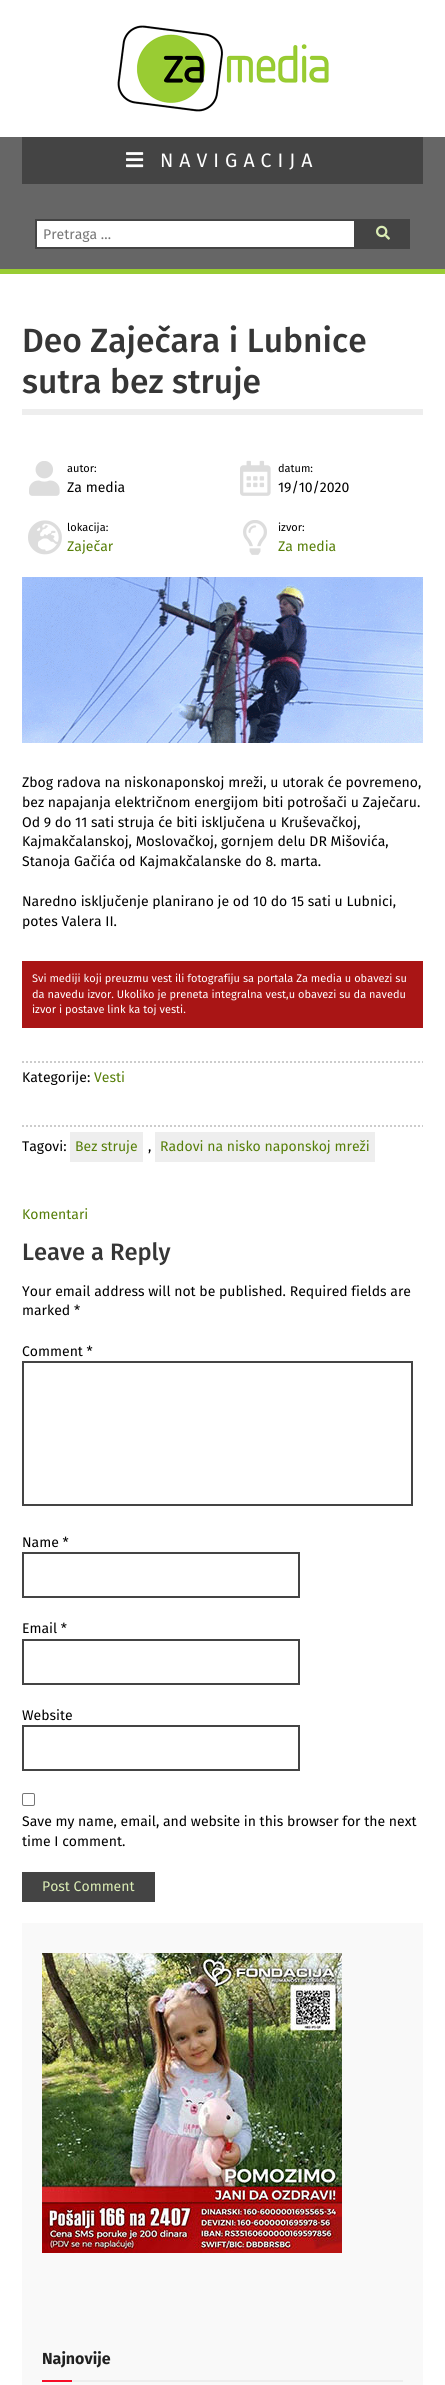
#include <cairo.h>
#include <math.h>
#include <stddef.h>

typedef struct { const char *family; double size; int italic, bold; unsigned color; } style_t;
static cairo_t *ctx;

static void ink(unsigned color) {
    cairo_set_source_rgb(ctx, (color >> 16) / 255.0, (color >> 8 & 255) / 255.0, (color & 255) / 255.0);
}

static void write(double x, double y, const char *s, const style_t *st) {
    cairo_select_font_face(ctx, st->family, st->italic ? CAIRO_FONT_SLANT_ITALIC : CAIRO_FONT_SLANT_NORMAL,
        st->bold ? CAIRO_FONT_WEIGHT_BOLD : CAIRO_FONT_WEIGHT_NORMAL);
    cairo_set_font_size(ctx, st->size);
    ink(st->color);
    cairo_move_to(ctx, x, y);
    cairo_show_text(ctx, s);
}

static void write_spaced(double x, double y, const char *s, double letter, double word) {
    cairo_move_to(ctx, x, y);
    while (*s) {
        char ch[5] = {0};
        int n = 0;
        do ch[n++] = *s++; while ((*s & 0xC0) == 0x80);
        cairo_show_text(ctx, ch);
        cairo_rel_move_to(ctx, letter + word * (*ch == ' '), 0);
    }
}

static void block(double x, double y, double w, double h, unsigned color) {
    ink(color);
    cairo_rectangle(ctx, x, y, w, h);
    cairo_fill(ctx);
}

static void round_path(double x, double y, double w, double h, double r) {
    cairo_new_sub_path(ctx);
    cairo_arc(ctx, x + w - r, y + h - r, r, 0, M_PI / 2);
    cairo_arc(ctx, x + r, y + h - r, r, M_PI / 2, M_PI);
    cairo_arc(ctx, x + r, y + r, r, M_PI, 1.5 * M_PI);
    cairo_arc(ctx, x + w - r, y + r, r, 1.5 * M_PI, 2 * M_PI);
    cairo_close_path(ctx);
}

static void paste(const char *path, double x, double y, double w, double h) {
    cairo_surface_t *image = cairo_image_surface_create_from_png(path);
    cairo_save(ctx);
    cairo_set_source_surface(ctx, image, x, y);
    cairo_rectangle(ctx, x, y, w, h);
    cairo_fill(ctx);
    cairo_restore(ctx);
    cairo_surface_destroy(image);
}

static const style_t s1 = {"Fira Sans", 14, 0, 0, 0x757575};
static const style_t s2 = {"Fira Sans Medium", 33.6, 0, 0, 0x363636};
static const style_t s3 = {"Fira Sans", 11, 0, 0, 0x000000};
static const style_t s4 = {"Fira Sans", 14, 0, 0, 0x000000};
static const style_t s5 = {"Fira Sans", 14, 0, 0, 0x567e08};
static const style_t s6 = {"Fira Sans", 11, 0, 0, 0xffffff};
static const style_t s7 = {"Fira Sans Medium", 23.75, 0, 0, 0x363636};
static const style_t s8 = {"Fira Sans", 14, 0, 0, 0xdbedb5};
static const style_t s9 = {"Fira Sans", 16, 0, 1, 0x212121};

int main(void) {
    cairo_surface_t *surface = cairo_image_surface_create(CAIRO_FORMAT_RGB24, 445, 2385);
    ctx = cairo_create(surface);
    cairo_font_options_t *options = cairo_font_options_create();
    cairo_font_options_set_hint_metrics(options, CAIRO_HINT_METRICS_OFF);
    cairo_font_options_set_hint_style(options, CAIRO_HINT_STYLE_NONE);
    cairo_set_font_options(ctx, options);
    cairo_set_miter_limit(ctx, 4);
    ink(0xffffff);
    cairo_paint(ctx);
    paste("pic1.png", 117, 25, 212, 87);
    block(0, 137, 445, 132, 0x666666);
    block(0, 269, 445, 5, 0x99cc33);
    block(22, 137, 401, 47, 0x444444);
    paste("pic2.png", 126, 152, 18, 16);
    cairo_select_font_face(ctx, "Fira Sans", CAIRO_FONT_SLANT_NORMAL, CAIRO_FONT_WEIGHT_NORMAL);
    cairo_set_font_size(ctx, 19.5);
    ink(0xffffff);
    write_spaced(160, 167, "NAVIGACIJA", 6, 0);
    cairo_rectangle(ctx, 36, 220, 319, 28);
    cairo_fill_preserve(ctx);
    ink(0x444444);
    cairo_stroke(ctx);
    write(43, 239, "Pretraga …", &s1);
    block(356, 219, 54, 30, 0x444444);
    paste("pic3.png", 376, 225, 14, 15);
    block(22, 409, 401, 6, 0xeeeeee);
    write(22, 352, "Deo Zaječara i Lubnice", &s2);
    write(22, 393, "sutra bez struje", &s2);
    paste("pic4.png", 29, 461, 31, 35);
    write(67, 472, "autor:", &s3);
    write(67, 492, "Za media", &s4);
    paste("pic5.png", 240, 460, 31, 36);
    write(278, 472, "datum:", &s3);
    write(278, 492, "19/10/2020", &s4);
    paste("pic6.png", 28, 520, 34, 35);
    write(67, 531, "lokacija:", &s3);
    write(67, 551, "Zaječar", &s5);
    paste("pic7.png", 243, 520, 24, 35);
    write(278, 531, "izvor:", &s3);
    write(278, 551, "Za media", &s5);
    paste("pic8.png", 22, 577, 401, 166);
    write(22, 787, "Zbog radova na niskonaponskoj mreži, u utorak će povremeno,", &s4);
    write(22, 807, "bez napajanja električnom energijom biti potrošači u Zaječaru.", &s4);
    write(22, 827, "Od 9 do 11 sati struja će biti isključena u Kruševačkoj,", &s4);
    write(22, 846, "Kajmakčalanskoj, Moslovačkoj, gornjem delu DR Mišovića,", &s4);
    write(22, 866, "Stanoja Gačića od Kajmakčalanske do 8. marta.", &s4);
    write(22, 906, "Naredno isključenje planirano je od 10 do 15 sati u Lubnici,", &s4);
    write(22, 926, "potes Valera II.", &s4);
    block(22, 961, 401, 67, 0xa91515);
    write(32, 982, "Svi mediji koji preuzmu vest ili fotografiju sa portala Za media u obavezi su", &s6);
    write(32, 998, "da navedu izvor. Ukoliko je preneta integralna vest,u obavezi su da navedu", &s6);
    write(32, 1013, "izvor i postave link ka toj vesti.", &s6);
    cairo_new_path(ctx);
    cairo_move_to(ctx, 22, 1062);
    cairo_line_to(ctx, 423, 1062);
    ink(0xcccccc);
    cairo_set_dash(ctx, (double[]){2, 2}, 2, 0);
    cairo_stroke(ctx);
    write(22, 1082, "Kategorije:", &s4);
    write(94, 1082, "Vesti", &s5);
    cairo_new_path(ctx);
    cairo_move_to(ctx, 22, 1126);
    cairo_line_to(ctx, 423, 1126);
    ink(0xcccccc);
    cairo_stroke(ctx);
    write(22, 1151, "Tagovi:", &s4);
    block(70, 1132, 73, 30, 0xeeeeee);
    write(75, 1151, "Bez struje", &s5);
    write(148, 1151, ",", &s4);
    block(155, 1132, 220, 30, 0xeeeeee);
    write(160, 1151, "Radovi na nisko naponskoj mreži", &s5);
    write(22, 1219, "Komentari", &s5);
    write(22, 1260, "Leave a Reply", &s7);
    write(22, 1296, "Your email address will not be published. Required fields are", &s4);
    write(22, 1315, "marked *", &s4);
    write(22, 1356, "Comment *", &s4);
    cairo_rectangle(ctx, 23, 1362, 389, 143);
    ink(0x444444);
    cairo_set_dash(ctx, NULL, 0, 0);
    cairo_stroke(ctx);
    write(22, 1547, "Name *", &s4);
    cairo_rectangle(ctx, 23, 1553, 276, 44);
    ink(0x444444);
    cairo_stroke(ctx);
    write(22, 1633, "Email *", &s4);
    cairo_rectangle(ctx, 23, 1640, 276, 44);
    ink(0x444444);
    cairo_stroke(ctx);
    write(22, 1720, "Website", &s4);
    cairo_rectangle(ctx, 23, 1726, 276, 44);
    ink(0x444444);
    cairo_stroke(ctx);
    round_path(22.5, 1793.5, 12, 12, 1.5);
    ink(0x767676);
    cairo_set_line_width(ctx, 1);
    cairo_stroke(ctx);
    write(22, 1826, "Save my name, email, and website in this browser for the next", &s4);
    write(22, 1846, "time I comment.", &s4);
    block(22, 1872, 133, 30, 0x444444);
    write(42, 1891, "Post Comment", &s8);
    block(22, 1923, 401, 462, 0xf9f9f9);
    paste("pic9.png", 42, 1953, 300, 300);
    block(72, 2380, 331, 2, 0xeeeeee);
    write(42, 2364, "Najnovije", &s9);
    block(42, 2380, 30, 2, 0xf70d28);
    cairo_surface_write_to_png(surface, "screenshot.png");
    cairo_font_options_destroy(options);
    cairo_destroy(ctx);
    cairo_surface_destroy(surface);
    return 0;
}
